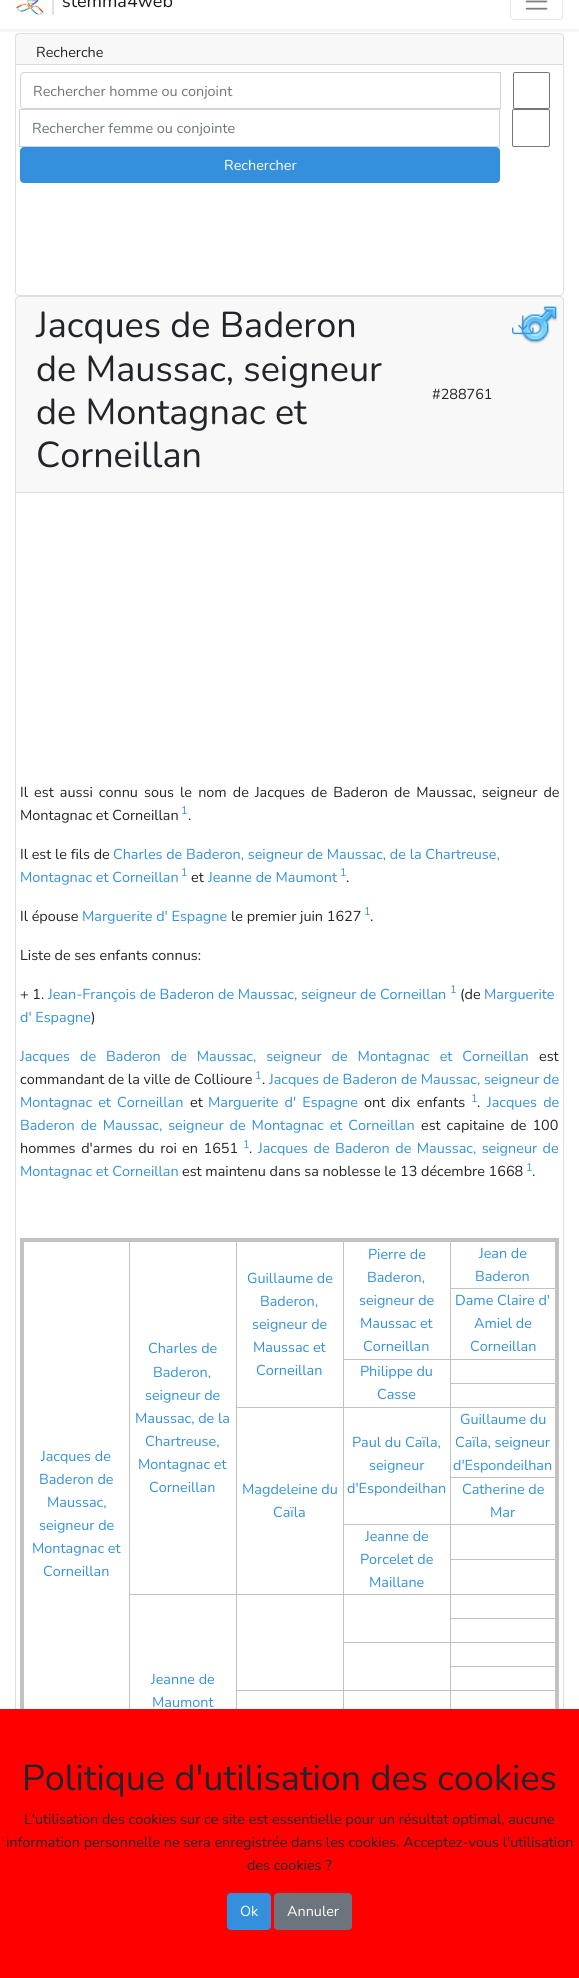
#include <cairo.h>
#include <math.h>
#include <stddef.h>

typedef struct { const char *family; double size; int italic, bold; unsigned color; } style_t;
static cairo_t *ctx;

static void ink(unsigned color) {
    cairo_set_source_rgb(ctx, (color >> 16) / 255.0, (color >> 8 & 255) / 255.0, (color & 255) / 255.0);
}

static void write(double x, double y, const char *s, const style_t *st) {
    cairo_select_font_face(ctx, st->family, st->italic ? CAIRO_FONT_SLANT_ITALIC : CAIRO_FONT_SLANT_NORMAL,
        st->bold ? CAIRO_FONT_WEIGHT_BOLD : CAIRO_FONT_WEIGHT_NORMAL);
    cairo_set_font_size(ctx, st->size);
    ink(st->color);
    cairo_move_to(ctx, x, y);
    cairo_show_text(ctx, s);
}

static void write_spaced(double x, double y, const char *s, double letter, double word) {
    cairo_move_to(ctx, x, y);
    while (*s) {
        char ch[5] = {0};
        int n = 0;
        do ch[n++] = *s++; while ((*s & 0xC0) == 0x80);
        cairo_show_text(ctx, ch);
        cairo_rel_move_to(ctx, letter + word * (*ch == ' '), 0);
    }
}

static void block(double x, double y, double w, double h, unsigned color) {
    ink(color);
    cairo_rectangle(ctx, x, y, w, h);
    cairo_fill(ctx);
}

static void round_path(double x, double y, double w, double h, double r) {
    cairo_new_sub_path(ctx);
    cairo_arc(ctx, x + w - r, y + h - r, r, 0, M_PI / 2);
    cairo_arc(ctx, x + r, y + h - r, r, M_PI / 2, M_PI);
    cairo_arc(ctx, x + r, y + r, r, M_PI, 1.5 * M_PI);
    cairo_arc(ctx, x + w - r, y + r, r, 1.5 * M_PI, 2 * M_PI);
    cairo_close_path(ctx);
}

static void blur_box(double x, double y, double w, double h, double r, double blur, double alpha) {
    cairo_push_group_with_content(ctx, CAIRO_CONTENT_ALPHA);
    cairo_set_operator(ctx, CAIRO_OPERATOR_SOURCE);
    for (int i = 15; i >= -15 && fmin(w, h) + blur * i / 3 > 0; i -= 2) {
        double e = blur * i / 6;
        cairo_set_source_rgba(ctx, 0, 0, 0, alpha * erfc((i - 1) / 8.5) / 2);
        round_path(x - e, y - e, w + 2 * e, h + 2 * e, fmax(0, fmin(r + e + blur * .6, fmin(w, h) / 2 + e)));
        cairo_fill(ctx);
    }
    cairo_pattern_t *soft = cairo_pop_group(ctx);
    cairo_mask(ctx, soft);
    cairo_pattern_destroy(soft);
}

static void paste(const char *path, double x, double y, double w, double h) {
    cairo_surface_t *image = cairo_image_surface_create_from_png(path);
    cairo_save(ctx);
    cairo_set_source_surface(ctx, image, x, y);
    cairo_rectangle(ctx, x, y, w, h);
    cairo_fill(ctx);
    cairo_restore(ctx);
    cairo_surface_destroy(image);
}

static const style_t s1 = {"Nunito ExtraLight", 18, 0, 0, 0x1a1a1a};
static const style_t s2 = {"Nunito ExtraLight", 14.4, 0, 0, 0x212529};
static const style_t s3 = {"Nunito ExtraLight", 14.4, 0, 0, 0x6c757d};
static const style_t s4 = {"Nunito ExtraLight", 14.4, 0, 0, 0xffffff};
static const style_t s5 = {"Nunito ExtraLight", 36, 0, 0, 0x212529};
static const style_t s6 = {"Nunito ExtraLight", 11, 0, 0, 0x3490dc};
static const style_t s7 = {"Nunito ExtraLight", 14.4, 0, 0, 0x3490dc};

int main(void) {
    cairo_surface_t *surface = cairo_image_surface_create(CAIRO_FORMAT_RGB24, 579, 1978);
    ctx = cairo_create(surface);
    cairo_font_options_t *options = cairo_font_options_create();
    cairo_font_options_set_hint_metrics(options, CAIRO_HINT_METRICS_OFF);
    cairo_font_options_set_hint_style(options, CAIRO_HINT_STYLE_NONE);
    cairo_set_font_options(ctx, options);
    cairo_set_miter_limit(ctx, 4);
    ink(0xffffff);
    cairo_paint(ctx);
    round_path(15.5, 33.5, 548, 262, 3.5);
    ink(0xdfdfdf);
    cairo_set_line_width(ctx, 1);
    cairo_stroke(ctx);
    cairo_set_source_rgba(ctx, 0, 0, 0, 0.03);
    cairo_rectangle(ctx, 16, 34, 547, 30);
    cairo_fill(ctx);
    cairo_save(ctx);
    cairo_rectangle(ctx, 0, 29, 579, 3);
    cairo_clip(ctx);
    ink(0x000000);
    blur_box(0, -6, 579, 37, 0, 2, 0.07);
    cairo_restore(ctx);
    paste("pic1.png", 16, 0, 28, 15);
    block(52, 0, 2, 15, 0xdee2e6);
    write(62, 7, "stemma4web", &s1);
    round_path(510.5, -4.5, 52, 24, 3.5);
    ink(0xe6e6e6);
    cairo_stroke(ctx);
    paste("pic2.png", 525, 0, 23, 10);
    block(16, 64, 547, 1, 0xd8d8d8);
    write(36, 57, "Recherche", &s2);
    cairo_new_path(ctx);
    cairo_move_to(ctx, 24, 72.5);
    cairo_line_to(ctx, 500.5, 72.5);
    cairo_line_to(ctx, 500.5, 108.5);
    cairo_line_to(ctx, 24, 108.5);
    cairo_curve_to(ctx, 22, 108.5, 20.5, 107, 20.5, 105);
    cairo_line_to(ctx, 20.5, 76);
    cairo_curve_to(ctx, 20.5, 74, 22, 72.5, 24, 72.5);
    cairo_close_path(ctx);
    ink(0xced4da);
    cairo_stroke(ctx);
    write(33, 96, "Rechercher homme ou conjoint", &s3);
    round_path(513.5, 72.5, 36, 36, 1.5);
    ink(0x767676);
    cairo_stroke(ctx);
    cairo_rectangle(ctx, 19.5, 109.5, 480, 37);
    ink(0xced4da);
    cairo_stroke(ctx);
    write(32, 133, "Rechercher femme ou conjointe", &s3);
    round_path(512.5, 109.5, 37, 37, 1.5);
    ink(0x767676);
    cairo_stroke(ctx);
    ink(0x3490dc);
    round_path(20.5, 147.5, 479, 35, 3.5);
    cairo_fill_preserve(ctx);
    cairo_stroke(ctx);
    write(224, 170, "Rechercher", &s4);
    round_path(15.5, 296.5, 548, 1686, 3.5);
    ink(0xdfdfdf);
    cairo_stroke(ctx);
    cairo_set_source_rgba(ctx, 0, 0, 0, 0.03);
    cairo_rectangle(ctx, 16, 297, 547, 195);
    cairo_fill(ctx);
    block(16, 492, 547, 1, 0xd8d8d8);
    write(36, 337, "Jacques de Baderon", &s5);
    write(36, 381, "de Maussac, seigneur", &s5);
    write(36, 424, "de Montagnac et", &s5);
    write(36, 467, "Corneillan", &s5);
    write(432, 399, "#288761", &s2);
    paste("pic3.png", 520, 306, 38, 38);
    paste("pic4.png", 512, 315, 22, 20);
    write_spaced(20, 797, "Il est aussi connu sous le nom de Jacques de Baderon de Maussac, seigneur de", 0, 2.4);
    write(20, 820, "Montagnac et Corneillan", &s2);
    write(181, 814, "1", &s6);
    write(188, 820, ".", &s2);
    write(20, 859, "Il est le fils de", &s2);
    write(113, 859, "Charles de Baderon, seigneur de Maussac, de la Chartreuse,", &s7);
    write(20, 882, "Montagnac et Corneillan", &s7);
    write(181, 876, "1", &s6);
    write(191, 882, "et", &s2);
    write(208, 882, "Jeanne de Maumont", &s7);
    write(340, 876, "1", &s6);
    write(346, 882, ".", &s2);
    write(20, 921, "Il épouse", &s2);
    write(82, 921, "Marguerite d' Espagne", &s7);
    write(231, 921, "le premier juin 1627", &s2);
    write(364, 915, "1", &s6);
    write(370, 921, ".", &s2);
    write(20, 960, "Liste de ses enfants connus:", &s2);
    write(20, 999, "+ 1.", &s2);
    write(48, 999, "Jean-François de Baderon de Maussac, seigneur de Corneillan", &s7);
    write(450, 993, "1", &s6);
    write(460, 999, "(de", &s2);
    write(484, 999, "Marguerite", &s7);
    write(20, 1022, "d' Espagne", &s7);
    write(91, 1022, ")", &s2);
    ink(0x3490dc);
    write_spaced(20, 1061, "Jacques de Baderon de Maussac, seigneur de Montagnac et Corneillan", 0, 6.25);
    write(539, 1061, "est", &s2);
    write(20, 1084, "commandant de la ville de Collioure", &s2);
    write(255, 1079, "1", &s6);
    write(262, 1084, ".", &s2);
    write(269, 1084, "Jacques de Baderon de Maussac, seigneur de", &s7);
    write_spaced(20, 1107, "Montagnac et Corneillan", 0, 2.4);
    write(190, 1107, "et", &s2);
    ink(0x3490dc);
    write_spaced(208, 1107, "Marguerite d' Espagne", 0, 2.4);
    ink(0x212529);
    write_spaced(364, 1107, "ont dix enfants", 0, 2.4);
    write(471, 1102, "1", &s6);
    write(477, 1107, ".", &s2);
    ink(0x3490dc);
    write_spaced(487, 1107, "Jacques de", 0, 2.4);
    write_spaced(20, 1130, "Baderon de Maussac, seigneur de Montagnac et Corneillan", 0, 2.25);
    ink(0x212529);
    write_spaced(421, 1130, "est capitaine de 100", 0, 2.25);
    write_spaced(20, 1153, "hommes d'armes du roi", 0, 2);
    write_spaced(182, 1153, "en 1651", 0, 2);
    write(243, 1148, "1", &s6);
    write(249, 1153, ".", &s2);
    ink(0x3490dc);
    write_spaced(258, 1153, "Jacques de Baderon de Maussac, seigneur de", 0, 1.75);
    write(20, 1176, "Montagnac et Corneillan", &s7);
    write(182, 1176, "est maintenu dans sa noblesse le 13 décembre 1668", &s2);
    write(526, 1171, "1", &s6);
    write(532, 1176, ".", &s2);
    block(450, 1288, 108, 1, 0xc1c1c1);
    block(450, 1359, 108, 1, 0xc1c1c1);
    block(450, 1383, 108, 1, 0xc1c1c1);
    block(450, 1407, 108, 1, 0xc1c1c1);
    block(450, 1477, 108, 1, 0xc1c1c1);
    block(450, 1524, 108, 1, 0xc1c1c1);
    block(450, 1559, 108, 1, 0xc1c1c1);
    block(450, 1594, 108, 1, 0xc1c1c1);
    block(450, 1618, 108, 1, 0xc1c1c1);
    block(450, 1642, 108, 1, 0xc1c1c1);
    block(450, 1666, 108, 1, 0xc1c1c1);
    block(450, 1690, 108, 1, 0xc1c1c1);
    block(450, 1690, 1, 25, 0xc1c1c1);
    block(343, 1690, 108, 1, 0xc1c1c1);
    block(450, 1666, 1, 25, 0xc1c1c1);
    block(450, 1642, 1, 25, 0xc1c1c1);
    block(343, 1642, 108, 1, 0xc1c1c1);
    block(450, 1618, 1, 25, 0xc1c1c1);
    block(450, 1594, 1, 25, 0xc1c1c1);
    block(343, 1594, 108, 1, 0xc1c1c1);
    block(450, 1559, 1, 36, 0xc1c1c1);
    block(450, 1524, 1, 36, 0xc1c1c1);
    block(343, 1524, 108, 1, 0xc1c1c1);
    block(450, 1477, 1, 48, 0xc1c1c1);
    block(450, 1407, 1, 71, 0xc1c1c1);
    block(343, 1407, 108, 1, 0xc1c1c1);
    block(450, 1383, 1, 25, 0xc1c1c1);
    block(450, 1359, 1, 25, 0xc1c1c1);
    block(343, 1359, 108, 1, 0xc1c1c1);
    block(450, 1240, 1, 120, 0xc1c1c1);
    block(343, 1690, 1, 19, 0xc1c1c1);
    block(236, 1690, 108, 1, 0xc1c1c1);
    block(343, 1642, 1, 49, 0xc1c1c1);
    block(343, 1594, 1, 49, 0xc1c1c1);
    block(236, 1594, 108, 1, 0xc1c1c1);
    block(343, 1524, 1, 71, 0xc1c1c1);
    block(343, 1407, 1, 118, 0xc1c1c1);
    block(236, 1407, 108, 1, 0xc1c1c1);
    block(343, 1240, 1, 168, 0xc1c1c1);
    block(236, 1690, 1, 19, 0xc1c1c1);
    block(236, 1594, 1, 97, 0xc1c1c1);
    block(129, 1594, 108, 1, 0xc1c1c1);
    block(236, 1240, 1, 355, 0xc1c1c1);
    block(129, 1240, 1, 469, 0xc1c1c1);
    block(20, 1238, 539, 4, 0xc1c1c1);
    block(555, 1238, 4, 471, 0xc1c1c1);
    block(20, 1238, 4, 471, 0xc1c1c1);
    write(247, 1283, "Guillaume de", &s7);
    write(260, 1306, "Baderon,", &s7);
    write(252, 1329, "seigneur de", &s7);
    write(253, 1352, "Maussac et", &s7);
    write(256, 1375, "Corneillan", &s7);
    write(368, 1259, "Pierre de", &s7);
    write(367, 1282, "Baderon,", &s7);
    write(359, 1305, "seigneur de", &s7);
    write(360, 1328, "Maussac et", &s7);
    write(363, 1351, "Corneillan", &s7);
    write(479, 1258, "Jean de", &s7);
    write(475, 1281, "Baderon", &s7);
    write(148, 1353, "Charles de", &s7);
    write(153, 1377, "Baderon,", &s7);
    write(145, 1400, "seigneur de", &s7);
    write(135, 1423, "Maussac, de la", &s7);
    write(145, 1446, "Chartreuse,", &s7);
    write(138, 1469, "Montagnac et", &s7);
    write(149, 1492, "Corneillan", &s7);
    write(41, 1461, "Jacques de", &s7);
    write(39, 1484, "Baderon de", &s7);
    write(47, 1507, "Maussac,", &s7);
    write(39, 1530, "seigneur de", &s7);
    write(32, 1553, "Montagnac et", &s7);
    write(43, 1576, "Corneillan", &s7);
    write(455, 1305, "Dame Claire d'", &s7);
    write(474, 1328, "Amiel de", &s7);
    write(470, 1351, "Corneillan", &s7);
    write(360, 1376, "Philippe du", &s7);
    write(377, 1399, "Casse", &s7);
    write(352, 1447, "Paul du Caïla,", &s7);
    write(369, 1470, "seigneur", &s7);
    write(347, 1493, "d'Espondeilhan", &s7);
    write(460, 1424, "Guillaume du", &s7);
    write(455, 1447, "Caïla, seigneur", &s7);
    write(453, 1470, "d'Espondeilhan", &s7);
    write(242, 1494, "Magdeleine du", &s7);
    write(273, 1517, "Caïla", &s7);
    write(462, 1494, "Catherine de", &s7);
    write(490, 1517, "Mar", &s7);
    write(365, 1541, "Jeanne de", &s7);
    write(360, 1564, "Porcelet de", &s7);
    write(369, 1587, "Maillane", &s7);
    write(151, 1684, "Jeanne de", &s7);
    write(152, 1707, "Maumont", &s7);
    block(0, 1709, 579, 269, 0xff0000);
    write(22, 1790, "Politique d'utilisation des cookies", &s5);
    write(24, 1824, "L'utilisation des cookies sur ce site est essentielle pour un résultat optimal, aucune", &s2);
    write(6, 1847, "information personnelle ne sera enregistrée dans les cookies. Acceptez-vous l'utilisation", &s2);
    write(247, 1870, "des cookies ?", &s2);
    ink(0x3490dc);
    round_path(227.5, 1893.5, 43, 36, 3.5);
    cairo_fill_preserve(ctx);
    cairo_stroke(ctx);
    write(240, 1916, "Ok", &s4);
    ink(0x6c757d);
    round_path(274.5, 1893.5, 77, 36, 3.5);
    cairo_fill_preserve(ctx);
    cairo_stroke(ctx);
    write(287, 1916, "Annuler", &s4);
    cairo_surface_write_to_png(surface, "screenshot.png");
    cairo_font_options_destroy(options);
    cairo_destroy(ctx);
    cairo_surface_destroy(surface);
    return 0;
}
